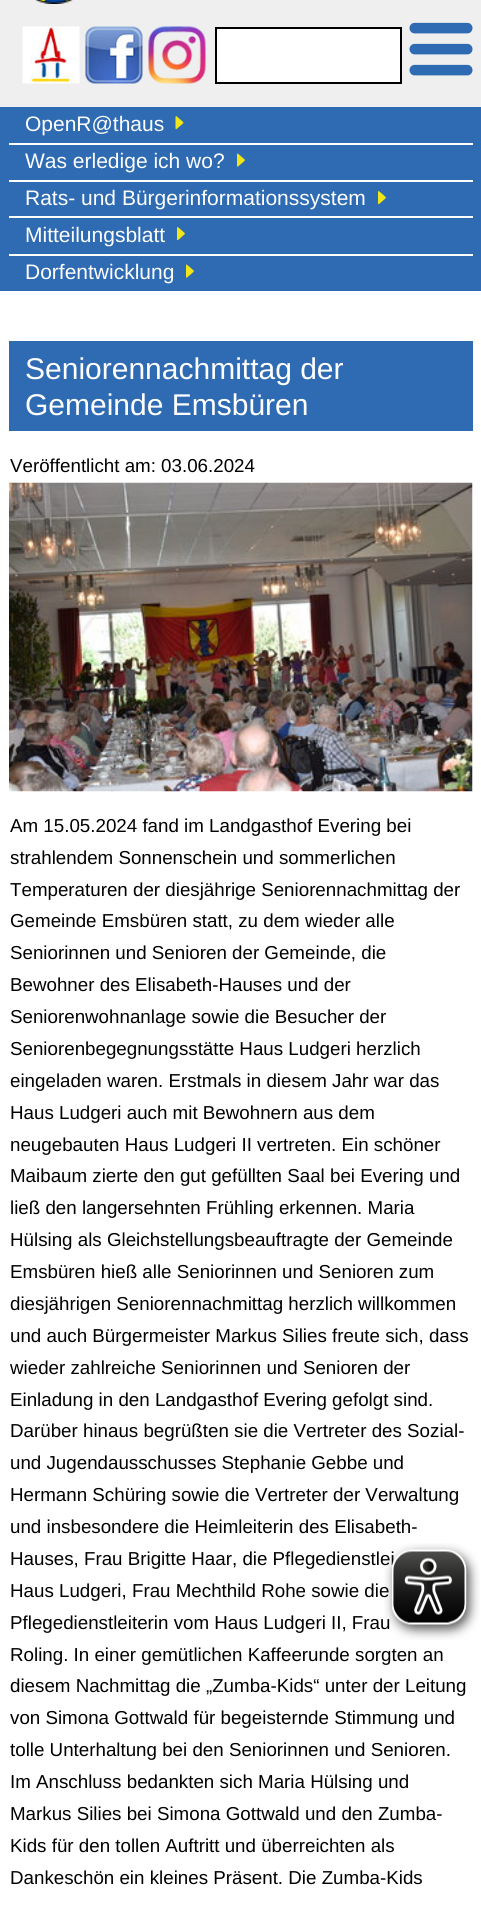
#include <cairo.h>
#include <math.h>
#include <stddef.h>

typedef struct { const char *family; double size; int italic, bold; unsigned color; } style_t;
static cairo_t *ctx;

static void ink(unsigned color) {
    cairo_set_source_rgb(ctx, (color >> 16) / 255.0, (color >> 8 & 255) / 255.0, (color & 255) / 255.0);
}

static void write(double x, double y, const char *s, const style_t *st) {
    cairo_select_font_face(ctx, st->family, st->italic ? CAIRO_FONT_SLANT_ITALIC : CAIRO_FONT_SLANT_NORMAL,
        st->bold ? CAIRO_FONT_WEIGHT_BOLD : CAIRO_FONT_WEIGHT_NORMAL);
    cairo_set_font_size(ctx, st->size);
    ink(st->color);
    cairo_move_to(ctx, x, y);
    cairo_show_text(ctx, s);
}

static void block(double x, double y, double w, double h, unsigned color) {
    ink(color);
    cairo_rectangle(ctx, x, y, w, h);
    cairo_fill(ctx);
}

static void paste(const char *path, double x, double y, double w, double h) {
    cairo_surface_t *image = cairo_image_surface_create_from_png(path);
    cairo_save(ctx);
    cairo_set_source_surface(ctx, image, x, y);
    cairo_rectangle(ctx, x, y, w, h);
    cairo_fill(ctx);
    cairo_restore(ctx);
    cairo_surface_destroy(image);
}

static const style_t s1 = {"Liberation Sans", 21, 0, 0, 0xffffff};
static const style_t s2 = {"Liberation Sans", 30, 0, 0, 0xffffff};
static const style_t s3 = {"Liberation Sans", 18.75, 0, 0, 0x000000};

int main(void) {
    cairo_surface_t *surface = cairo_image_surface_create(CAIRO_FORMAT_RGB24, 481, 1911);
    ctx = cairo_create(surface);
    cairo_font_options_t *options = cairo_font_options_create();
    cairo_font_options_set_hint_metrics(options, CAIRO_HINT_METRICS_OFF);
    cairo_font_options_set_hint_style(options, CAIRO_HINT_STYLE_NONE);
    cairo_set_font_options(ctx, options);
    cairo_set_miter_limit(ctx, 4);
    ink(0xffffff);
    cairo_paint(ctx);
    block(0, 0, 481, 107, 0xefefef);
    paste("pic1.png", 35, 0, 38, 4);
    paste("pic2.png", 22, 26, 58, 58);
    paste("pic3.png", 85, 26, 58, 58);
    paste("pic4.png", 148, 26, 58, 58);
    ink(0xffffff);
    cairo_rectangle(ctx, 216, 28, 185, 55);
    cairo_fill_preserve(ctx);
    ink(0x000000);
    cairo_stroke(ctx);
    paste("pic5.png", 409, 22, 64, 54);
    block(0, 107, 481, 184, 0x2e6bb3);
    block(9, 143, 464, 2, 0xffffff);
    write(25, 131, "OpenR@thaus", &s1);
    paste("pic6.png", 175, 116, 9, 14);
    block(9, 180, 464, 2, 0xffffff);
    write(25, 168, "Was erledige ich wo?", &s1);
    paste("pic7.png", 237, 153, 8, 14);
    block(9, 216, 464, 2, 0xffffff);
    write(25, 205, "Rats- und Bürgerinformationssystem", &s1);
    paste("pic8.png", 378, 191, 8, 14);
    block(9, 254, 464, 2, 0xffffff);
    write(25, 242, "Mitteilungsblatt", &s1);
    paste("pic8.png", 177, 227, 8, 14);
    write(25, 279, "Dorfentwicklung", &s1);
    paste("pic7.png", 186, 264, 8, 14);
    block(9, 341, 464, 90, 0x2e6bb3);
    write(25, 379, "Seniorennachmittag der", &s2);
    write(25, 415, "Gemeinde Emsbüren", &s2);
    write(10, 472, "Veröffentlicht am: 03.06.2024", &s3);
    paste("pic9.png", 9, 482, 464, 310);
    write(10, 832, "Am 15.05.2024 fand im Landgasthof Evering bei", &s3);
    write(10, 864, "strahlendem Sonnenschein und sommerlichen", &s3);
    write(10, 896, "Temperaturen der diesjährige Seniorennachmittag der", &s3);
    write(10, 927, "Gemeinde Emsbüren statt, zu dem wieder alle", &s3);
    write(10, 959, "Seniorinnen und Senioren der Gemeinde, die", &s3);
    write(10, 991, "Bewohner des Elisabeth-Hauses und der", &s3);
    write(10, 1023, "Seniorenwohnanlage sowie die Besucher der", &s3);
    write(10, 1055, "Seniorenbegegnungsstätte Haus Ludgeri herzlich", &s3);
    write(10, 1087, "eingeladen waren. Erstmals in diesem Jahr war das", &s3);
    write(10, 1119, "Haus Ludgeri auch mit Bewohnern aus dem", &s3);
    write(10, 1151, "neugebauten Haus Ludgeri II vertreten. Ein schöner", &s3);
    write(10, 1182, "Maibaum zierte den gut gefüllten Saal bei Evering und", &s3);
    write(10, 1214, "ließ den langersehnten Frühling erkennen. Maria", &s3);
    write(10, 1246, "Hülsing als Gleichstellungsbeauftragte der Gemeinde", &s3);
    write(10, 1278, "Emsbüren hieß alle Seniorinnen und Senioren zum", &s3);
    write(10, 1310, "diesjährigen Seniorennachmittag herzlich willkommen", &s3);
    write(10, 1342, "und auch Bürgermeister Markus Silies freute sich, dass", &s3);
    write(10, 1374, "wieder zahlreiche Seniorinnen und Senioren der", &s3);
    write(10, 1406, "Einladung in den Landgasthof Evering gefolgt sind.", &s3);
    write(10, 1437, "Darüber hinaus begrüßten sie die Vertreter des Sozial-", &s3);
    write(10, 1469, "und Jugendausschusses Stephanie Gebbe und", &s3);
    write(10, 1501, "Hermann Schüring sowie die Vertreter der Verwaltung", &s3);
    write(10, 1533, "und insbesondere die Heimleiterin des Elisabeth-", &s3);
    write(10, 1565, "Hauses, Frau Brigitte Haar, die Pflegedienstlei", &s3);
    write(10, 1597, "Haus Ludgeri, Frau Mechthild Rohe sowie die", &s3);
    write(10, 1629, "Pflegedienstleiterin vom Haus Ludgeri II, Frau", &s3);
    write(10, 1661, "Roling. In einer gemütlichen Kaffeerunde sorgten an", &s3);
    write(10, 1692, "diesem Nachmittag die „Zumba-Kids“ unter der Leitung", &s3);
    write(10, 1724, "von Simona Gottwald für begeisternde Stimmung und", &s3);
    write(10, 1756, "tolle Unterhaltung bei den Seniorinnen und Senioren.", &s3);
    write(10, 1788, "Im Anschluss bedankten sich Maria Hülsing und", &s3);
    write(10, 1820, "Markus Silies bei Simona Gottwald und den Zumba-", &s3);
    write(10, 1852, "Kids für den tollen Auftritt und überreichten als", &s3);
    write(10, 1884, "Dankeschön ein kleines Präsent. Die Zumba-Kids", &s3);
    paste("pic10.png", 384, 1543, 96, 97);
    cairo_surface_write_to_png(surface, "screenshot.png");
    cairo_font_options_destroy(options);
    cairo_destroy(ctx);
    cairo_surface_destroy(surface);
    return 0;
}
